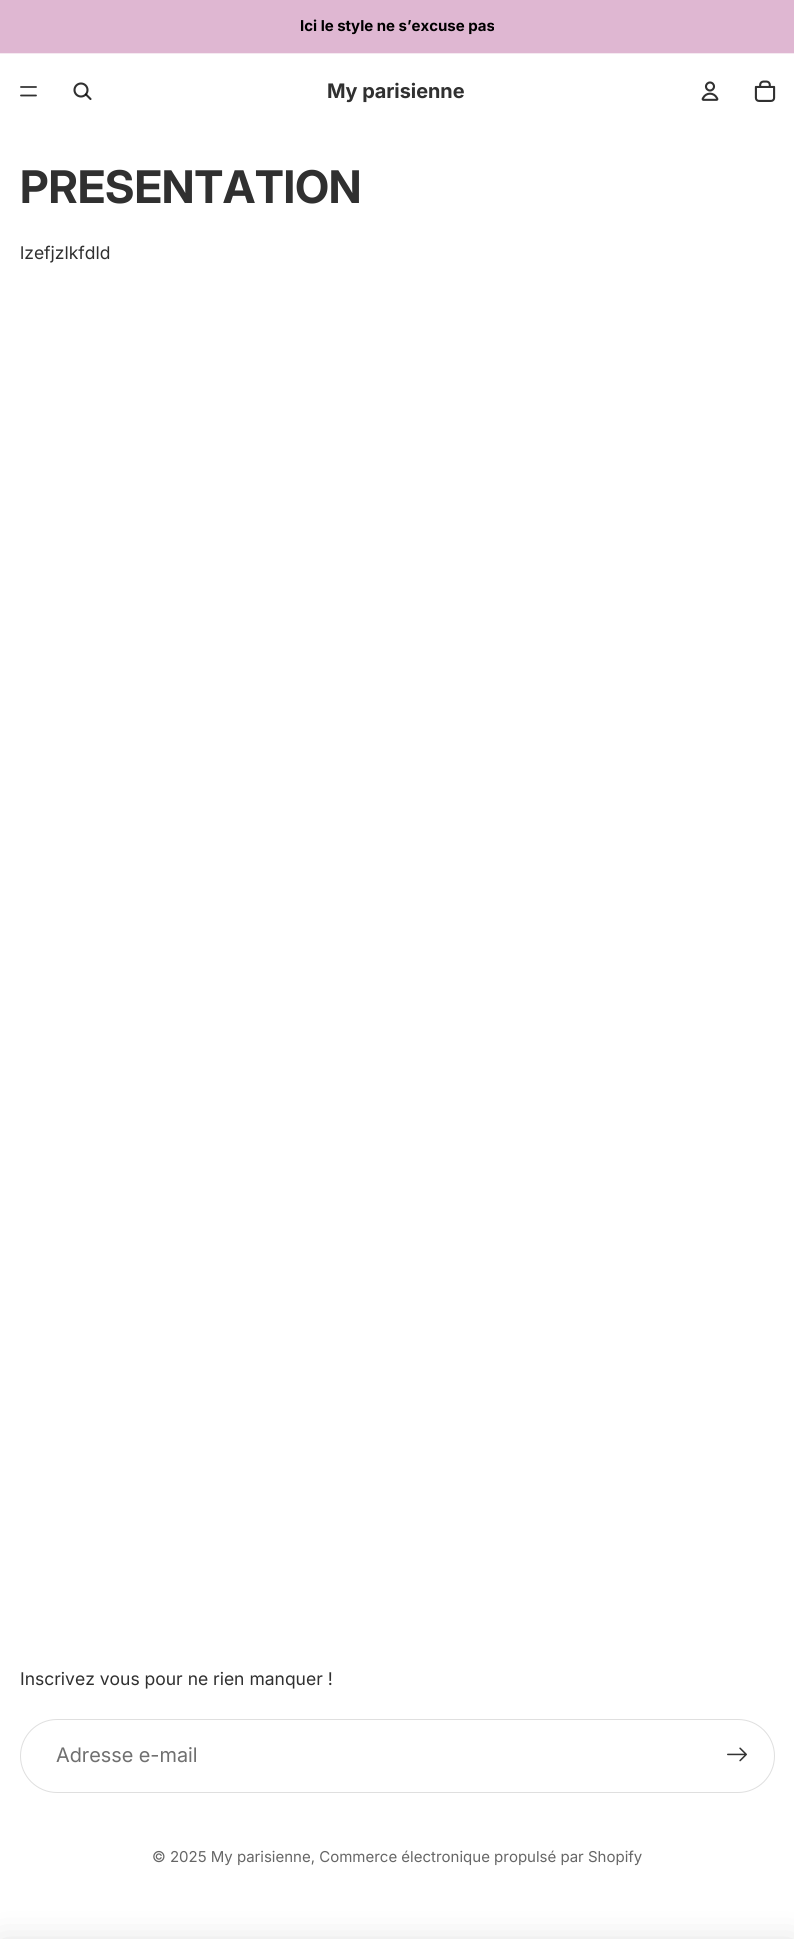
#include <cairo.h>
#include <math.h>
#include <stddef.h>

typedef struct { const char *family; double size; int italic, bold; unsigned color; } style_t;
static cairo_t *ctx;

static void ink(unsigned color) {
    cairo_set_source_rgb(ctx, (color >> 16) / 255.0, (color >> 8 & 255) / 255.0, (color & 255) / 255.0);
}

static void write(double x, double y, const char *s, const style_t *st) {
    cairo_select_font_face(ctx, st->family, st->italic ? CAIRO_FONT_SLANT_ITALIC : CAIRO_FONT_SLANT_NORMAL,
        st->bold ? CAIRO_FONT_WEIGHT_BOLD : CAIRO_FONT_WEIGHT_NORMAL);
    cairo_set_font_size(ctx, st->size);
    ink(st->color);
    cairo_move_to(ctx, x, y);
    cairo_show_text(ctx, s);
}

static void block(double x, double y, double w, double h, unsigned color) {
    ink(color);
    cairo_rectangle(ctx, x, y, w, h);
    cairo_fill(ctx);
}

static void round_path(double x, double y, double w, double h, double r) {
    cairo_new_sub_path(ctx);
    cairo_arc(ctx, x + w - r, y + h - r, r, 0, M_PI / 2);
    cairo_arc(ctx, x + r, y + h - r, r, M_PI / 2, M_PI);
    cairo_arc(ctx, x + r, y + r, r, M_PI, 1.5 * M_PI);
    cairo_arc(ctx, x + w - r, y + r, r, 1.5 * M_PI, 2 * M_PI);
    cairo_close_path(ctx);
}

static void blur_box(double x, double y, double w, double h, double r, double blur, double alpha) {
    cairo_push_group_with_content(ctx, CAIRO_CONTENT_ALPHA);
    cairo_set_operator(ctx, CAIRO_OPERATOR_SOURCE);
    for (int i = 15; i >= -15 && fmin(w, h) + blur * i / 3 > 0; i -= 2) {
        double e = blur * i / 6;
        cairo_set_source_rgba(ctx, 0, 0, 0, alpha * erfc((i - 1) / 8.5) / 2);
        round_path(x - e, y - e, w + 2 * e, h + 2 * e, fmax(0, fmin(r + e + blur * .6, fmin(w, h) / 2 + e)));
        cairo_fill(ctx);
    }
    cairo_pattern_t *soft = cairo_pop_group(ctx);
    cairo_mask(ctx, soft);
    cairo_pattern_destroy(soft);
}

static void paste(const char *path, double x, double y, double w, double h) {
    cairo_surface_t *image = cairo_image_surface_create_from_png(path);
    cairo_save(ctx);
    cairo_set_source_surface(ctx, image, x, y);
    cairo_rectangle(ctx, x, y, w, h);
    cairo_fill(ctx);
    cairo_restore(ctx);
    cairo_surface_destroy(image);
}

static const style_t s1 = {"Inter", 15, 0, 1, 0x000000};
static const style_t s2 = {"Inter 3", 20, 0, 1, 0x303030};
static const style_t s3 = {"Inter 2", 45, 0, 1, 0x303030};
static const style_t s4 = {"Inter", 17.5, 0, 0, 0x303030};
static const style_t s5 = {"Inter 2", 20, 0, 0, 0x707070};
static const style_t s6 = {"Inter", 15, 0, 0, 0x666666};

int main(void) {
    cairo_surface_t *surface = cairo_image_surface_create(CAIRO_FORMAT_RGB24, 794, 1939);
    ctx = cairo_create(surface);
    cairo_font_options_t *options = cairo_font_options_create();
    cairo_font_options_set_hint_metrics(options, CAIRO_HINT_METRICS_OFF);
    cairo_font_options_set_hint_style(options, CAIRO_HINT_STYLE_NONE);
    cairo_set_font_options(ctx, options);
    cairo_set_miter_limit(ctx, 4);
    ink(0xffffff);
    cairo_paint(ctx);
    block(0, 0, 794, 53, 0xdfb7d2);
    block(0, 53, 794, 1, 0xf5e9f1);
    write(300, 31, "Ici le style ne s’excuse pas", &s1);
    cairo_new_path(ctx);
    cairo_move_to(ctx, 21, 87);
    cairo_line_to(ctx, 36, 87);
    cairo_move_to(ctx, 21, 95.5);
    cairo_line_to(ctx, 36, 95.5);
    ink(0x303030);
    cairo_set_line_width(ctx, 1.8);
    cairo_set_line_cap(ctx, CAIRO_LINE_CAP_ROUND);
    cairo_stroke(ctx);
    cairo_arc(ctx, 81, 90, 6.5, 0, 2 * M_PI);
    cairo_set_line_width(ctx, 2.1);
    cairo_set_line_cap(ctx, CAIRO_LINE_CAP_BUTT);
    cairo_stroke(ctx);
    cairo_new_path(ctx);
    cairo_move_to(ctx, 86, 94.5);
    cairo_line_to(ctx, 90.5, 99);
    cairo_set_source_rgba(ctx, 0, 0, 0, 0.81);
    cairo_set_line_cap(ctx, CAIRO_LINE_CAP_ROUND);
    cairo_set_line_join(ctx, CAIRO_LINE_JOIN_ROUND);
    cairo_stroke(ctx);
    write(327, 98, "My parisienne", &s2);
    paste("pic1.png", 701, 81, 18, 20);
    paste("pic2.png", 754, 80, 22, 22);
    write(20, 203, "PRESENTATION", &s3);
    write(20, 259, "lzefjzlkfdld", &s4);
    write(20, 1685, "Inscrivez vous pour ne rien manquer !", &s4);
    round_path(20.5, 1719.5, 754, 73, 36.5);
    ink(0xdfdfdf);
    cairo_set_line_width(ctx, 1);
    cairo_set_line_cap(ctx, CAIRO_LINE_CAP_BUTT);
    cairo_set_line_join(ctx, CAIRO_LINE_JOIN_MITER);
    cairo_stroke(ctx);
    write(56, 1762, "Adresse e-mail", &s5);
    paste("pic3.png", 727, 1747, 20, 15);
    write(152, 1862, "© 2025 My parisienne, Commerce électronique propulsé par Shopify", &s6);
    ink(0x000000);
    blur_box(0, 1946, 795, 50, 0, 19, 0.15);
    cairo_surface_write_to_png(surface, "screenshot.png");
    cairo_font_options_destroy(options);
    cairo_destroy(ctx);
    cairo_surface_destroy(surface);
    return 0;
}
